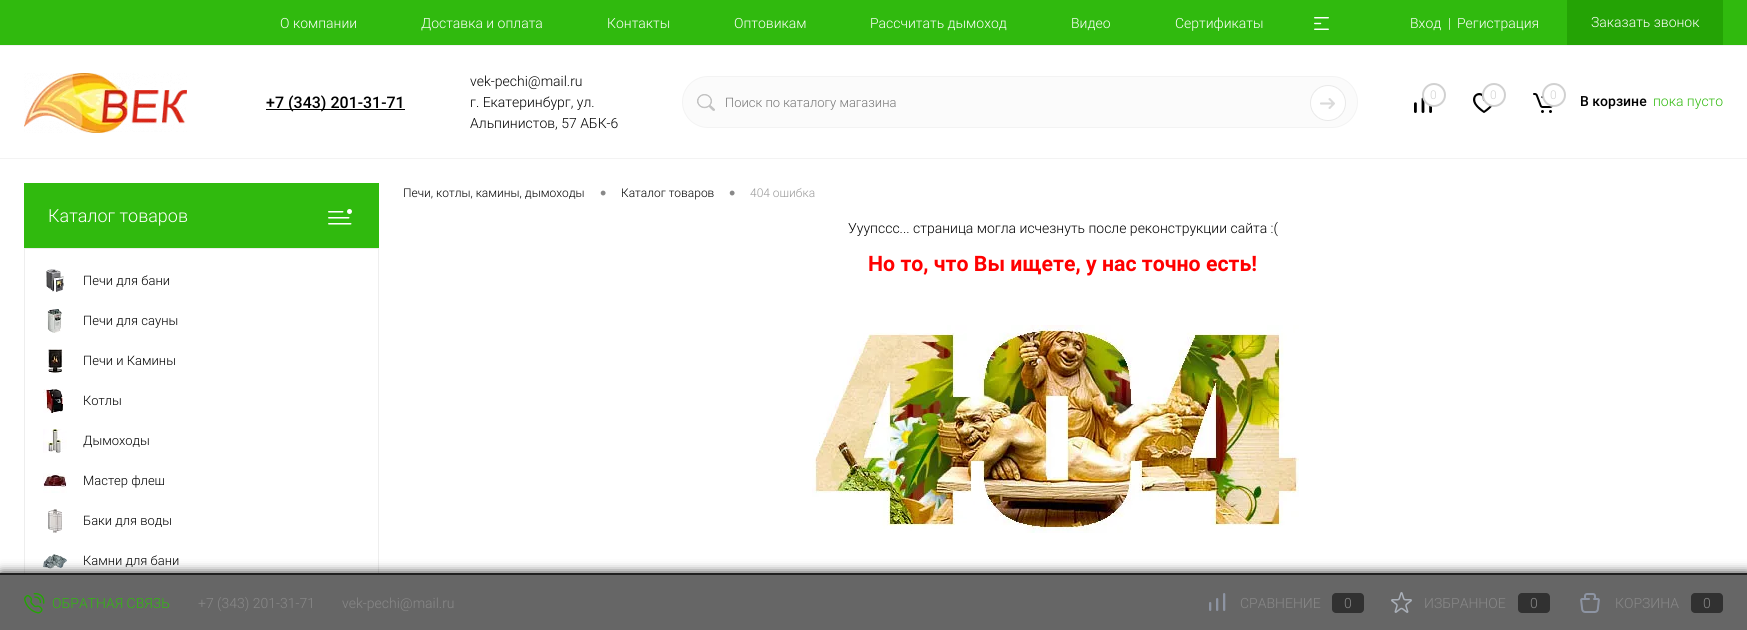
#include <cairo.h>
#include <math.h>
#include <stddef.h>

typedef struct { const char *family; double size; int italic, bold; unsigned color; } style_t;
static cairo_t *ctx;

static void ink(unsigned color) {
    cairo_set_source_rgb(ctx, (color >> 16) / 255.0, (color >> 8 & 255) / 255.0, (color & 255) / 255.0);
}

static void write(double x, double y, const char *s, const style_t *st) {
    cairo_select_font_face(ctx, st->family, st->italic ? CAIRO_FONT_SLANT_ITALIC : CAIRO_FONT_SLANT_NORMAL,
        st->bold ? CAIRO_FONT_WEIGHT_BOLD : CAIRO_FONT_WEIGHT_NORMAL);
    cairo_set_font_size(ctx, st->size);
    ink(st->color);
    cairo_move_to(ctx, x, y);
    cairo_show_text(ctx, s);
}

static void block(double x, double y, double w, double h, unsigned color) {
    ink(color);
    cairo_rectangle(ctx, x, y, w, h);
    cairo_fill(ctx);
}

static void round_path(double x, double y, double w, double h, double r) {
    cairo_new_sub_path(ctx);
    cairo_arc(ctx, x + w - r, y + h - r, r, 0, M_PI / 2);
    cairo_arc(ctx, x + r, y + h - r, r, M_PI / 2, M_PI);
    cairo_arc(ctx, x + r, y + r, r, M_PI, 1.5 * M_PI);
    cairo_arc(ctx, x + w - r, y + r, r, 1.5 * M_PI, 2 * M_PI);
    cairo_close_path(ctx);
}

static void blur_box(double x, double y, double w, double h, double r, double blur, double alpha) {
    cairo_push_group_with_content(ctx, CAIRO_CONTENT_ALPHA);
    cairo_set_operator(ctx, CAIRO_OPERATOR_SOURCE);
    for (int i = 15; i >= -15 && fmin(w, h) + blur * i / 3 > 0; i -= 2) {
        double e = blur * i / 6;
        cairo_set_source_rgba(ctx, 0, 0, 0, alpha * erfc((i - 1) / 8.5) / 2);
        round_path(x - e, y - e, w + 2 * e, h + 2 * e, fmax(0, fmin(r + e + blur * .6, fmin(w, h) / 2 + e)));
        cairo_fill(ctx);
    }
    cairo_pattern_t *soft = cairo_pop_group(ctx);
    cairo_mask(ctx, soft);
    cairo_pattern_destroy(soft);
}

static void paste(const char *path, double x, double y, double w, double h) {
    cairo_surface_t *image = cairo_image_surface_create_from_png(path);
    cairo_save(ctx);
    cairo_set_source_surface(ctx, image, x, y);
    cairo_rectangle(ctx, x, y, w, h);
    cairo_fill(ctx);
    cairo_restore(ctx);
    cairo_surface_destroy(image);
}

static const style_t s1 = {"Roboto Light", 14, 0, 0, 0xffffff};
static const style_t s2 = {"Roboto Medium", 16, 0, 0, 0x000000};
static const style_t s3 = {"Roboto Light", 14, 0, 0, 0x000000};
static const style_t s4 = {"Roboto Light", 13, 0, 0, 0x757575};
static const style_t s5 = {"Roboto Light", 12, 0, 0, 0xd1d1d1};
static const style_t s6 = {"Roboto Medium", 14, 0, 0, 0x000000};
static const style_t s7 = {"Roboto Light", 14, 0, 0, 0x30ba0e};
static const style_t s8 = {"Roboto Light", 18, 0, 0, 0xffffff};
static const style_t s9 = {"Roboto Light", 13, 0, 0, 0x000000};
static const style_t s10 = {"Roboto Light", 12, 0, 0, 0x000000};
static const style_t s11 = {"Liberation Sans", 18, 0, 0, 0x888888};
static const style_t s12 = {"Roboto Light", 12, 0, 0, 0x999999};
static const style_t s13 = {"Roboto", 21.3, 0, 1, 0xff0000};
static const style_t s14 = {"Roboto Light", 14, 0, 0, 0x888888};

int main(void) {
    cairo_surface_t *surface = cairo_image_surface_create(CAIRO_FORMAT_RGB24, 1747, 630);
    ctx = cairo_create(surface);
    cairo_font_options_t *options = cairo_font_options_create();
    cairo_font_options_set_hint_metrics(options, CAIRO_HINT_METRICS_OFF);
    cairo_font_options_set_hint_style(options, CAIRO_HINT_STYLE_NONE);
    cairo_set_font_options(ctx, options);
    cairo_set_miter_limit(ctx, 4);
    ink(0xffffff);
    cairo_paint(ctx);
    block(0, 0, 1747, 45, 0x30ba0e);
    write(280, 28, "О компании", &s1);
    write(421, 28, "Доставка и оплата", &s1);
    write(607, 28, "Контакты", &s1);
    write(734, 28, "Оптовикам", &s1);
    write(870, 28, "Рассчитать дымоход", &s1);
    write(1071, 28, "Видео", &s1);
    write(1175, 28, "Cертификаты", &s1);
    paste("pic1.png", 1314, 17, 15, 13);
    write(1410, 28, "Вход", &s1);
    write(1448, 28, "|", &s1);
    write(1457, 28, "Регистрация", &s1);
    block(1567, 0, 156, 45, 0x24a305);
    write(1591, 27, "Заказать звонок", &s1);
    block(0, 45, 1747, 1, 0xf3f3f3);
    block(0, 158, 1747, 1, 0xf3f3f3);
    paste("pic2.png", 24, 73, 163, 60);
    block(266, 109, 139, 1, 0x000000);
    write(266, 108, "+7 (343) 201-31-71", &s2);
    write(470, 86, "vek-pechi@mail.ru", &s3);
    write(470, 107, "г. Екатеринбург, ул.", &s3);
    write(470, 128, "Альпинистов, 57 АБК-6", &s3);
    ink(0xfbfbfb);
    round_path(682.5, 76.5, 675, 51, 25.5);
    cairo_fill_preserve(ctx);
    ink(0xf3f3f3);
    cairo_set_line_width(ctx, 1);
    cairo_stroke(ctx);
    paste("pic3.png", 697, 94, 18, 17);
    write(725, 107, "Поиск по каталогу магазина", &s4);
    paste("pic4.png", 1310, 85, 36, 36);
    paste("pic5.png", 1414, 97, 18, 16);
    ink(0xffffff);
    cairo_arc(ctx, 1434, 95, 11, 0, 2 * M_PI);
    cairo_fill_preserve(ctx);
    ink(0xd1d1d1);
    cairo_set_line_width(ctx, 2);
    cairo_stroke(ctx);
    write(1430, 99, "0", &s5);
    paste("pic6.png", 1473, 93, 20, 20);
    ink(0xffffff);
    cairo_arc(ctx, 1494, 95, 11, 0, 2 * M_PI);
    cairo_fill_preserve(ctx);
    ink(0xd1d1d1);
    cairo_stroke(ctx);
    write(1490, 99, "0", &s5);
    paste("pic7.png", 1533, 93, 20, 20);
    ink(0xffffff);
    cairo_arc(ctx, 1554, 95, 11, 0, 2 * M_PI);
    cairo_fill_preserve(ctx);
    ink(0xd1d1d1);
    cairo_stroke(ctx);
    write(1550, 99, "0", &s5);
    write(1580, 106, "В корзине", &s6);
    write(1653, 106, "пока пусто", &s7);
    block(24, 183, 355, 65, 0x30ba0e);
    write(48, 222, "Каталог товаров", &s8);
    paste("pic8.png", 328, 209, 24, 16);
    block(24, 248, 355, 1, 0xeeeeee);
    block(378, 248, 1, 325, 0xeeeeee);
    block(24, 248, 1, 325, 0xeeeeee);
    paste("pic9.png", 46, 269, 18, 23);
    write(83, 285, "Печи для бани", &s9);
    paste("pic10.png", 47, 309, 15, 24);
    write(83, 325, "Печи для сауны", &s9);
    paste("pic11.png", 48, 349, 15, 24);
    write(83, 365, "Печи и Камины", &s9);
    paste("pic12.png", 43, 389, 20, 24);
    write(83, 405, "Котлы", &s9);
    paste("pic13.png", 43, 429, 24, 24);
    write(83, 445, "Дымоходы", &s9);
    paste("pic14.png", 43, 473, 24, 20);
    write(83, 485, "Мастер флеш", &s9);
    paste("pic15.png", 48, 509, 14, 24);
    write(83, 525, "Баки для воды", &s9);
    paste("pic16.png", 43, 554, 24, 15);
    write(83, 565, "Камни для бани", &s9);
    write(403, 197, "Печи, котлы, камины, дымоходы", &s10);
    write(600, 199, "•", &s11);
    write(621, 197, "Каталог товаров", &s10);
    write(729, 199, "•", &s11);
    write(750, 197, "404 ошибка", &s12);
    write(848, 233, "Ууупссс... страница могла исчезнуть после реконструкции сайта :(", &s3);
    write(868, 271, "Но то, что Вы ищете, у нас точно есть!", &s13);
    paste("pic17.png", 812, 325, 487, 208);
    ink(0x000000);
    blur_box(1, 574, 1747, 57, 0, 6, 1);
    block(0, 575, 1747, 55, 0x666666);
    block(0, 573, 1747, 2, 0x202020);
    paste("pic18.png", 24, 593, 21, 21);
    write(52, 608, "ОБРАТНАЯ СВЯЗЬ", &s7);
    write(198, 608, "+7 (343) 201-31-71", &s14);
    write(342, 608, "vek-pechi@mail.ru", &s14);
    paste("pic19.png", 1209, 593, 17, 18);
    write(1240, 608, "СРАВНЕНИЕ", &s14);
    ink(0x313131);
    round_path(1332, 593, 32, 20, 4);
    cairo_fill(ctx);
    write(1344, 608, "0", &s14);
    paste("pic20.png", 1391, 592, 21, 21);
    write(1424, 608, "ИЗБРАННОЕ", &s14);
    ink(0x313131);
    round_path(1518, 593, 32, 20, 4);
    cairo_fill(ctx);
    write(1530, 608, "0", &s14);
    paste("pic21.png", 1580, 593, 20, 20);
    write(1615, 608, "КОРЗИНА", &s14);
    ink(0x313131);
    round_path(1691, 593, 32, 20, 4);
    cairo_fill(ctx);
    write(1703, 608, "0", &s14);
    cairo_surface_write_to_png(surface, "screenshot.png");
    cairo_font_options_destroy(options);
    cairo_destroy(ctx);
    cairo_surface_destroy(surface);
    return 0;
}
